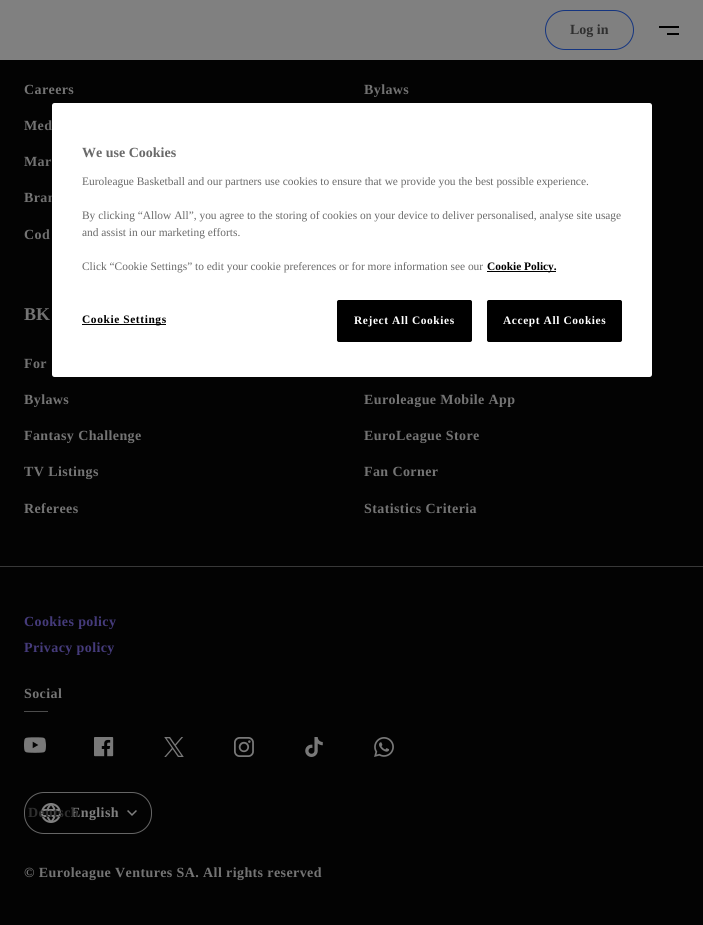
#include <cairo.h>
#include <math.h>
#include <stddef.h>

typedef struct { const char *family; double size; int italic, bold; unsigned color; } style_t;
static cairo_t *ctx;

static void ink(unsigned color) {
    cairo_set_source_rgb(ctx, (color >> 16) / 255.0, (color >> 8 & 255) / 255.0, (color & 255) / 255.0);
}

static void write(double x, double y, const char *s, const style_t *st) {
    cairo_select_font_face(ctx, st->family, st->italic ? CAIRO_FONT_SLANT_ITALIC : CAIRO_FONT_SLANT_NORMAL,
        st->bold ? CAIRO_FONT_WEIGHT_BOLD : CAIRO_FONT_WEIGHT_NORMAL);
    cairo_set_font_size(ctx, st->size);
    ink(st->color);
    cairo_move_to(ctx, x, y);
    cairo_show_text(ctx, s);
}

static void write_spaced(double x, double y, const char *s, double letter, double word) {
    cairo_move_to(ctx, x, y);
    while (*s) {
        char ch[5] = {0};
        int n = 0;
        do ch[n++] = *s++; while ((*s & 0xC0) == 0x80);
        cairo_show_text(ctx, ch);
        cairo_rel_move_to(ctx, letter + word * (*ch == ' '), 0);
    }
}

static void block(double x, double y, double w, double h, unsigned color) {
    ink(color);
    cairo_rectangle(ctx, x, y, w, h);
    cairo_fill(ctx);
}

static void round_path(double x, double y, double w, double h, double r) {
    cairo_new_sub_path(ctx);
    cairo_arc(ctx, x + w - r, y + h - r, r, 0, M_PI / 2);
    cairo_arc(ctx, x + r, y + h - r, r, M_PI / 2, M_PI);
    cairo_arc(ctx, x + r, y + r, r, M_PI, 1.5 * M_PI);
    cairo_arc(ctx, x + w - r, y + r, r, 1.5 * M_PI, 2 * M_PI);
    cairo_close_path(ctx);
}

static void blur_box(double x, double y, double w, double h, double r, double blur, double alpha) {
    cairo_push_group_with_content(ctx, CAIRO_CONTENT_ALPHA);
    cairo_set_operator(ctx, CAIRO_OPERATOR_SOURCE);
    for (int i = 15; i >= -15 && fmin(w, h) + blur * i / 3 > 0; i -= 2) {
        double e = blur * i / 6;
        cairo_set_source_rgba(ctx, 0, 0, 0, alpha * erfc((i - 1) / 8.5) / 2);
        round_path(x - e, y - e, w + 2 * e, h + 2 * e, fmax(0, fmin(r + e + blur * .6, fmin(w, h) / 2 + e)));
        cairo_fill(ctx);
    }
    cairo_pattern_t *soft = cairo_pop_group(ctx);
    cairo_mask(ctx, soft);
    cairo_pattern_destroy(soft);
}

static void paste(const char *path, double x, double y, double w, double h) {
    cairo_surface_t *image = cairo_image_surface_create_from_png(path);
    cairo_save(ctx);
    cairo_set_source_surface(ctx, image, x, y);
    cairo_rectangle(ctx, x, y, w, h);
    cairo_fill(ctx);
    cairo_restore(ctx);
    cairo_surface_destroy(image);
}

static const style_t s1 = {"Liberation Serif", 14, 0, 1, 0x2f2f2f};
static const style_t s2 = {"Liberation Serif", 18, 0, 1, 0x747474};
static const style_t s3 = {"Liberation Serif", 14, 0, 1, 0x696969};
static const style_t s4 = {"Liberation Serif", 11.4, 0, 0, 0x696969};
static const style_t s5 = {"Liberation Serif", 11.4, 0, 1, 0x000000};

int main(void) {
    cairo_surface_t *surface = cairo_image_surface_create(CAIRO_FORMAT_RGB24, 703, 925);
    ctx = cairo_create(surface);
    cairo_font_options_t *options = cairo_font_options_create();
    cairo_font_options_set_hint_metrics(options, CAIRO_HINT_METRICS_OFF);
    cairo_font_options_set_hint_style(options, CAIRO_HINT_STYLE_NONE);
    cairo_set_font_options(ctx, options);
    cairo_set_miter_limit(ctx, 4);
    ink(0x030303);
    cairo_paint(ctx);
    block(0, 0, 703, 60, 0x808080);
    round_path(545.5, 10.5, 88, 39, 19.5);
    ink(0x153580);
    cairo_set_line_width(ctx, 1);
    cairo_stroke(ctx);
    write(570, 34, "Log in", &s1);
    block(659, 26, 20, 2, 0x000000);
    block(667, 33, 12, 2, 0x000000);
    ink(0x747474);
    write_spaced(24, 94, "Careers", 0.4, 0);
    write_spaced(24, 130, "Med", 0.4, 0);
    write_spaced(24, 166, "Mar", 0.4, 0);
    write_spaced(24, 202, "Bran", 0.4, 0);
    write_spaced(24, 239, "Cod", 0.4, 0);
    write_spaced(364, 94, "Bylaws", 0.4, 0);
    write(24, 320, "BK", &s2);
    cairo_set_font_size(ctx, 14);
    write_spaced(24, 368, "For", 0.4, 0);
    write_spaced(24, 404, "Bylaws", 0.4, 0);
    write_spaced(24, 440, "Fantasy Challenge", 0.4, 0);
    write_spaced(24, 476, "TV Listings", 0.4, 0);
    write_spaced(24, 513, "Referees", 0.4, 0);
    write_spaced(364, 404, "Euroleague Mobile App", 0.4, 0);
    write_spaced(364, 440, "EuroLeague Store", 0.4, 0);
    write_spaced(364, 476, "Fan Corner", 0.4, 0);
    write_spaced(364, 513, "Statistics Criteria", 0.4, 0);
    block(0, 566, 703, 1, 0x383838);
    ink(0x453b7b);
    write_spaced(24, 626, "Cookies policy", 0.4, 0);
    write_spaced(24, 652, "Privacy policy", 0.4, 0);
    ink(0x747474);
    write_spaced(24, 698, "Social", 0.4, 0);
    block(24, 711, 24, 1, 0x4c4c4c);
    paste("pic1.png", 24, 737, 22, 16);
    paste("pic2.png", 94, 737, 20, 20);
    paste("pic3.png", 164, 737, 20, 20);
    paste("pic4.png", 234, 737, 20, 20);
    paste("pic5.png", 305, 737, 18, 20);
    paste("pic6.png", 374, 737, 20, 20);
    round_path(24.5, 792.5, 127, 41, 19.5);
    ink(0x666666);
    cairo_stroke(ctx);
    paste("pic7.png", 41, 803, 20, 20);
    ink(0x808080);
    write_spaced(71, 817, "English", 0.4, 0);
    ink(0x2f2f2f);
    write_spaced(28, 817, "Deutsch", 0.4, 0);
    paste("pic8.png", 127, 810, 10, 6);
    ink(0x747474);
    write_spaced(24, 877, "© Euroleague Ventures SA. All rights reserved", 0.4, 0);
    ink(0x000000);
    blur_box(52, 103, 600, 274, 2.5, 9, 0.2);
    ink(0xffffff);
    round_path(52, 103, 600, 274, 2.5);
    cairo_fill(ctx);
    write(82, 157, "We use Cookies", &s3);
    write(82, 185, "Euroleague Basketball and our partners use cookies to ensure that we provide you the best possible experience.", &s4);
    write(82, 219, "By clicking “Allow All”, you agree to the storing of cookies on your device to deliver personalised, analyse site usage", &s4);
    write(82, 236, "and assist in our marketing efforts.", &s4);
    write(82, 270, "Click “Cookie Settings” to edit your cookie preferences or for more information see our", &s4);
    block(487, 271, 69, 1, 0x000000);
    write(487, 270, "Cookie Policy.", &s5);
    block(82, 324, 84, 1, 0x000000);
    write_spaced(82, 323, "Cookie Settings", 0.6, 0);
    round_path(337.5, 300.5, 134, 41, 1.5);
    cairo_fill_preserve(ctx);
    cairo_stroke(ctx);
    ink(0xffffff);
    write_spaced(354, 324, "Reject All Cookies", 0.6, 0);
    ink(0x000000);
    round_path(487.5, 300.5, 134, 41, 1.5);
    cairo_fill_preserve(ctx);
    cairo_stroke(ctx);
    ink(0xffffff);
    write_spaced(503, 324, "Accept All Cookies", 0.6, 0);
    cairo_surface_write_to_png(surface, "screenshot.png");
    cairo_font_options_destroy(options);
    cairo_destroy(ctx);
    cairo_surface_destroy(surface);
    return 0;
}
